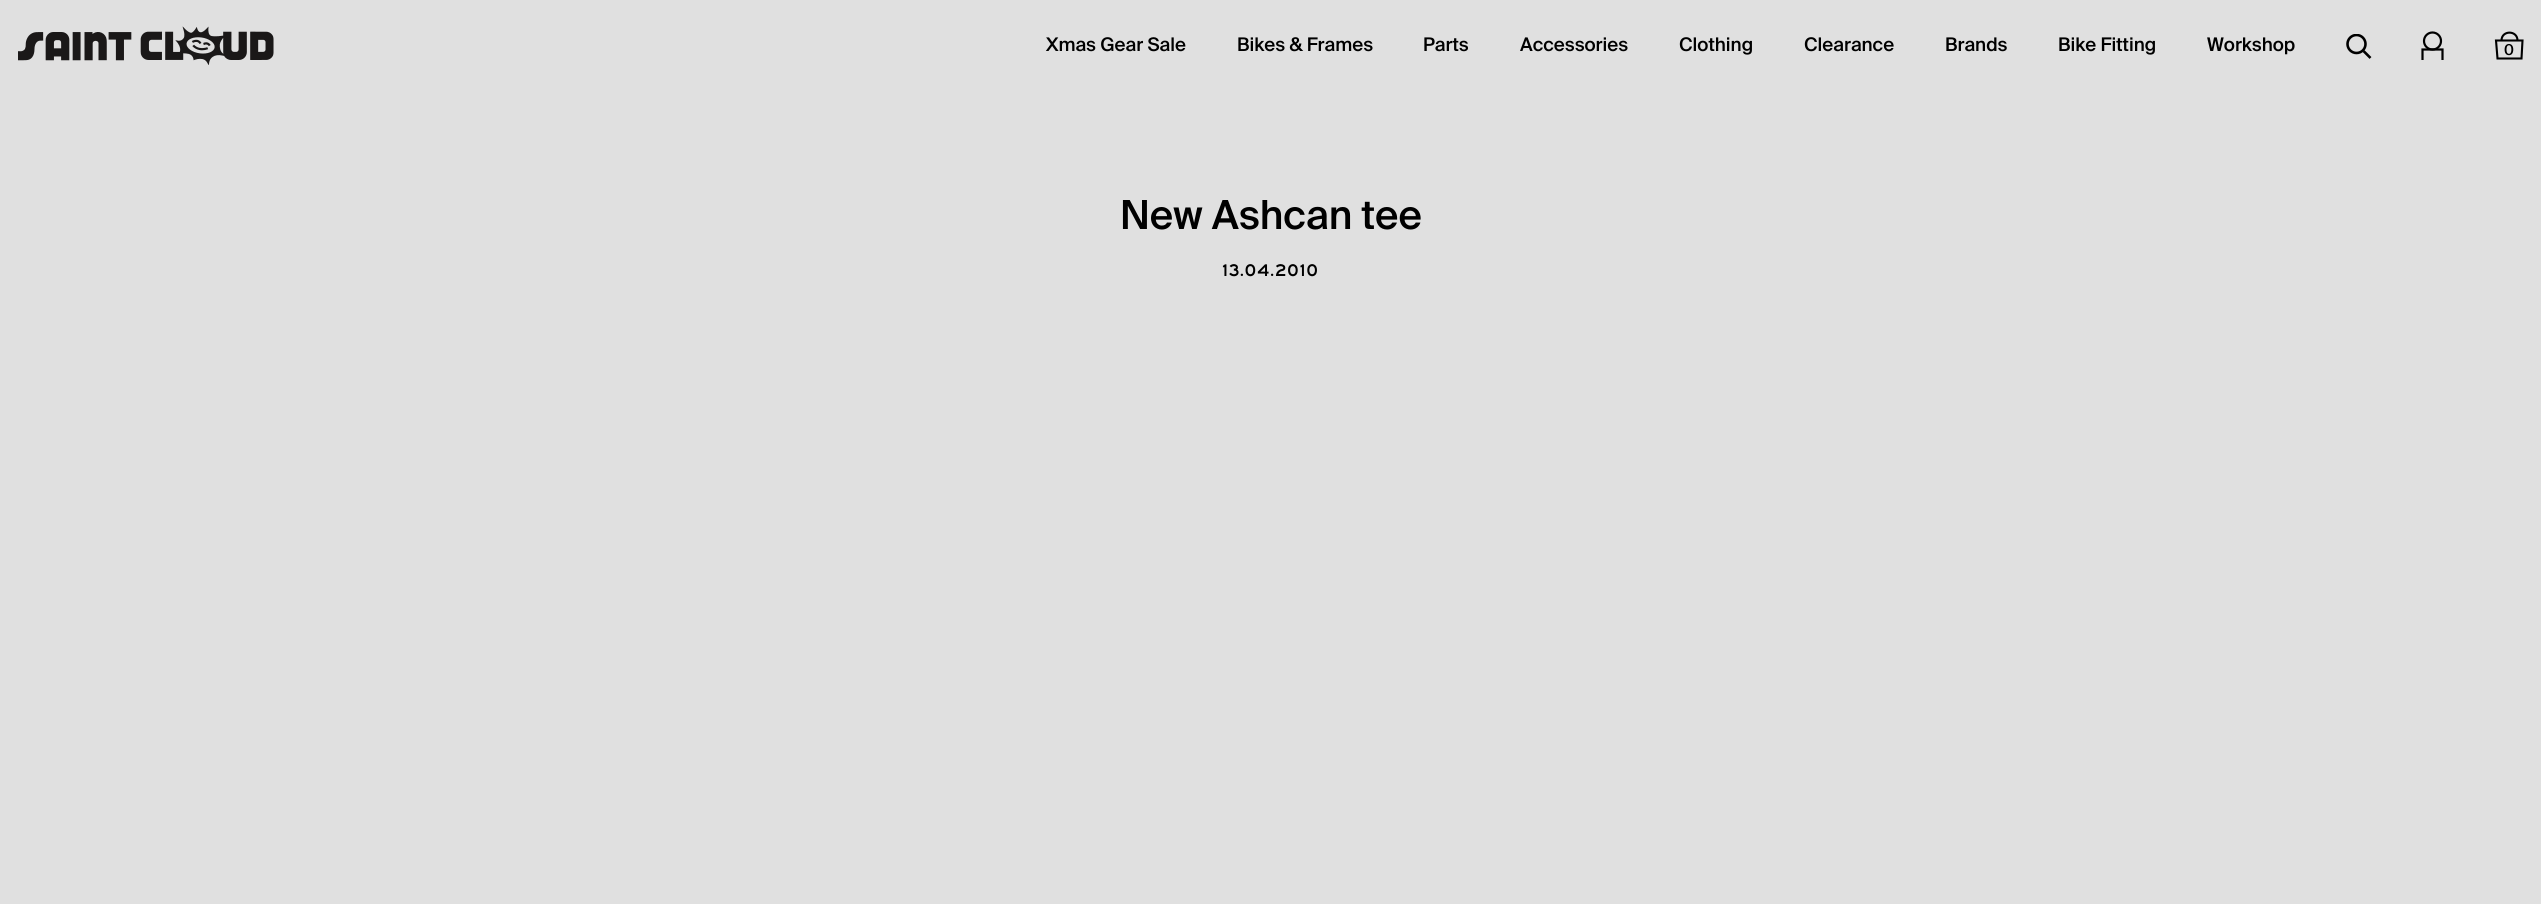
#include <cairo.h>
#include <math.h>
#include <stddef.h>

typedef struct { const char *family; double size; int italic, bold; unsigned color; } style_t;
static cairo_t *ctx;

static void ink(unsigned color) {
    cairo_set_source_rgb(ctx, (color >> 16) / 255.0, (color >> 8 & 255) / 255.0, (color & 255) / 255.0);
}

static void write(double x, double y, const char *s, const style_t *st) {
    cairo_select_font_face(ctx, st->family, st->italic ? CAIRO_FONT_SLANT_ITALIC : CAIRO_FONT_SLANT_NORMAL,
        st->bold ? CAIRO_FONT_WEIGHT_BOLD : CAIRO_FONT_WEIGHT_NORMAL);
    cairo_set_font_size(ctx, st->size);
    ink(st->color);
    cairo_move_to(ctx, x, y);
    cairo_show_text(ctx, s);
}

static void write_spaced(double x, double y, const char *s, double letter, double word) {
    cairo_move_to(ctx, x, y);
    while (*s) {
        char ch[5] = {0};
        int n = 0;
        do ch[n++] = *s++; while ((*s & 0xC0) == 0x80);
        cairo_show_text(ctx, ch);
        cairo_rel_move_to(ctx, letter + word * (*ch == ' '), 0);
    }
}

static void paste(const char *path, double x, double y, double w, double h) {
    cairo_surface_t *image = cairo_image_surface_create_from_png(path);
    cairo_save(ctx);
    cairo_set_source_surface(ctx, image, x, y);
    cairo_rectangle(ctx, x, y, w, h);
    cairo_fill(ctx);
    cairo_restore(ctx);
    cairo_surface_destroy(image);
}

static const style_t s1 = {"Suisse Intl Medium", 18.75, 0, 0, 0x000000};
static const style_t s2 = {"Suisse Intl Medium", 15, 0, 0, 0x000000};
static const style_t s3 = {"Suisse Intl Medium", 40, 0, 0, 0x000000};

int main(void) {
    cairo_surface_t *surface = cairo_image_surface_create(CAIRO_FORMAT_RGB24, 2541, 904);
    ctx = cairo_create(surface);
    cairo_font_options_t *options = cairo_font_options_create();
    cairo_font_options_set_hint_metrics(options, CAIRO_HINT_METRICS_OFF);
    cairo_font_options_set_hint_style(options, CAIRO_HINT_STYLE_NONE);
    cairo_set_font_options(ctx, options);
    cairo_set_miter_limit(ctx, 4);
    ink(0xe0e0e0);
    cairo_paint(ctx);
    paste("pic1.png", 18, 26, 256, 39);
    write(1046, 51, "Xmas Gear Sale", &s1);
    write(1237, 51, "Bikes & Frames", &s1);
    write(1423, 51, "Parts", &s1);
    write(1520, 51, "Accessories", &s1);
    write(1679, 51, "Clothing", &s1);
    write(1804, 51, "Clearance", &s1);
    write(1945, 51, "Brands", &s1);
    write(2058, 51, "Bike Fitting", &s1);
    write(2207, 51, "Workshop", &s1);
    cairo_save(ctx);
    cairo_rectangle(ctx, 2346, 34, 25, 25);
    cairo_clip(ctx);
    cairo_arc(ctx, 2356.5, 44, 9, 0, 2 * M_PI);
    cairo_set_line_width(ctx, 2.6);
    cairo_stroke(ctx);
    cairo_restore(ctx);
    cairo_new_path(ctx);
    cairo_move_to(ctx, 2363.5, 51);
    cairo_line_to(ctx, 2370.5, 58);
    cairo_set_line_width(ctx, 2.6);
    cairo_stroke(ctx);
    cairo_arc(ctx, 2432.5, 41, 8.5, 0, 2 * M_PI);
    cairo_set_line_width(ctx, 2.2);
    cairo_stroke(ctx);
    cairo_new_path(ctx);
    cairo_move_to(ctx, 2422.5, 60);
    cairo_line_to(ctx, 2422.5, 49.5);
    cairo_line_to(ctx, 2442.5, 49.5);
    cairo_line_to(ctx, 2442.5, 60);
    cairo_stroke(ctx);
    cairo_new_path(ctx);
    cairo_move_to(ctx, 2501.5, 40.5);
    cairo_curve_to(ctx, 2501.5, 30, 2517.5, 30, 2517.5, 40.5);
    cairo_move_to(ctx, 2496, 40.5);
    cairo_line_to(ctx, 2522.5, 40.5);
    cairo_line_to(ctx, 2521.5, 58.5);
    cairo_line_to(ctx, 2497.5, 58.5);
    cairo_close_path(ctx);
    cairo_set_line_width(ctx, 2.1);
    cairo_stroke(ctx);
    write(2504, 55, "0", &s2);
    write(1120, 229, "New Ashcan tee", &s3);
    cairo_select_font_face(ctx, "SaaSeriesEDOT", CAIRO_FONT_SLANT_NORMAL, CAIRO_FONT_WEIGHT_NORMAL);
    cairo_set_font_size(ctx, 17.5);
    write_spaced(1222, 276, "13.04.2010", 0.9, 0);
    cairo_surface_write_to_png(surface, "screenshot.png");
    cairo_font_options_destroy(options);
    cairo_destroy(ctx);
    cairo_surface_destroy(surface);
    return 0;
}
